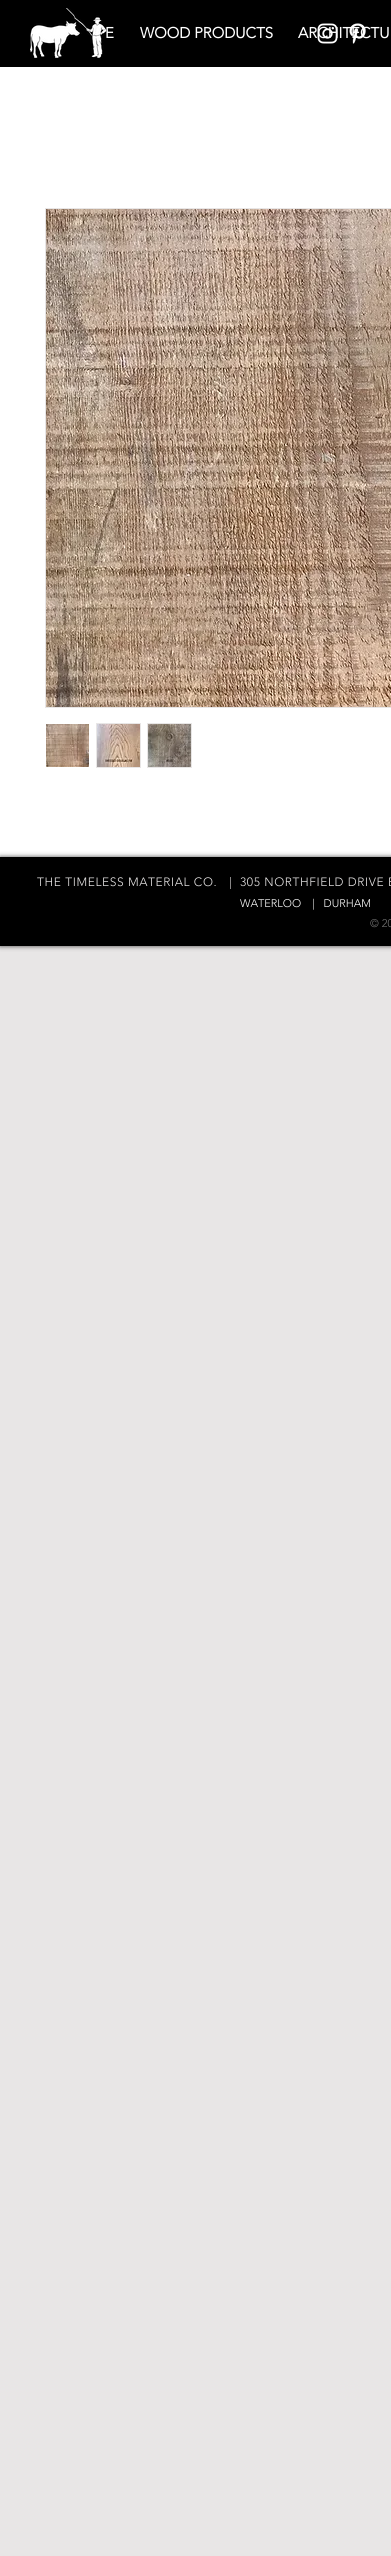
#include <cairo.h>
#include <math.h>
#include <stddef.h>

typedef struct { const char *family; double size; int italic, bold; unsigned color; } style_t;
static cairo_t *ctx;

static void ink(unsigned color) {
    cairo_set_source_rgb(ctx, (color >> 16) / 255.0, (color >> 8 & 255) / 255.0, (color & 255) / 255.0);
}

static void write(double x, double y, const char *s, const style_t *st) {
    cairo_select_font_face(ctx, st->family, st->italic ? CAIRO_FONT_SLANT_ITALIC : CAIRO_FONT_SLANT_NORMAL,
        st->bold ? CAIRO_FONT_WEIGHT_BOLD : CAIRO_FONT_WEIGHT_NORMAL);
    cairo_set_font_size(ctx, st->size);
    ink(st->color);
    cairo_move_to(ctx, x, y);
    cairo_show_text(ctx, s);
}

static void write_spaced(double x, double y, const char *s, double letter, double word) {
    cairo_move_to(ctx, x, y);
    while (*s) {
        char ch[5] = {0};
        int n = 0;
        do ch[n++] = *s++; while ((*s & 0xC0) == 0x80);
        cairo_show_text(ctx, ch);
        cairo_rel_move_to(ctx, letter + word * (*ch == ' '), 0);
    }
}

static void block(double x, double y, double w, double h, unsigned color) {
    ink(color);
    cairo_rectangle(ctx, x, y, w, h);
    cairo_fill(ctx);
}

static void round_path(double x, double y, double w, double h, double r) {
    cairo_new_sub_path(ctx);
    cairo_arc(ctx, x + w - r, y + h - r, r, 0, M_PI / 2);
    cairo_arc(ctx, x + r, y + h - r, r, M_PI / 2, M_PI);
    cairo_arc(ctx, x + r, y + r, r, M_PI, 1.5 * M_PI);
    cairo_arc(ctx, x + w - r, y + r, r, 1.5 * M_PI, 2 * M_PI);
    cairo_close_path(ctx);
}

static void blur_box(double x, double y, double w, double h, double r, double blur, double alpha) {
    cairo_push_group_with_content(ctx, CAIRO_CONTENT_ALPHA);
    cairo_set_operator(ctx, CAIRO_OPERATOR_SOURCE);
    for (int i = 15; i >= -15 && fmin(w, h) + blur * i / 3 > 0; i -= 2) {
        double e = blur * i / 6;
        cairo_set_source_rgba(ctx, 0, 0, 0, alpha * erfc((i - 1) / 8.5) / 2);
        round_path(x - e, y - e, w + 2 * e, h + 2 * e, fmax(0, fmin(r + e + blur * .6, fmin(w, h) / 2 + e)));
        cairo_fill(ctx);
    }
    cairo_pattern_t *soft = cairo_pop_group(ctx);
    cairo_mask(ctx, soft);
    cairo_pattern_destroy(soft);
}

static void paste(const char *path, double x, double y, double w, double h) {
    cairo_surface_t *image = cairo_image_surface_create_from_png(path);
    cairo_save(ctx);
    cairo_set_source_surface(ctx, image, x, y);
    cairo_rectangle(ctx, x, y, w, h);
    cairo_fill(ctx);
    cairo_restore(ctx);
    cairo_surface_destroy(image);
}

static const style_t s1 = {"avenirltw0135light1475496", 15, 0, 1, 0xffffff};
static const style_t s2 = {"avenirltw0135light1475496 Light", 11, 0, 0, 0xffffff};
static const style_t s3 = {"avenirltw0135light1475496 Light", 11, 0, 0, 0x757575};

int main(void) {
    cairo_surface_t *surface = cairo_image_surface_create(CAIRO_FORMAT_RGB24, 391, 2556);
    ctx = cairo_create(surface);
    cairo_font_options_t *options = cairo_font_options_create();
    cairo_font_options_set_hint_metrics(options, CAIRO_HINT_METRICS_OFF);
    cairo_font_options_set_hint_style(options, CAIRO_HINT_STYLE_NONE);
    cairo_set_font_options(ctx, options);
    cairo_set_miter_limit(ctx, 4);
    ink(0xe8e6e6);
    cairo_paint(ctx);
    block(0, 0, 391, 67, 0x000000);
    write(105, 38, "E", &s1);
    paste("pic1.png", 30, 8, 77, 50);
    write(298, 38, "ARCHITECTU", &s1);
    paste("pic2.png", 317, 23, 21, 21);
    paste("pic3.png", 349, 23, 17, 21);
    write(140, 38, "WOOD PRODUCTS", &s1);
    block(0, 67, 391, 790, 0xffffff);
    cairo_rectangle(ctx, 45.5, 208.5, 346, 499);
    ink(0xe8e6e6);
    cairo_set_line_width(ctx, 1);
    cairo_stroke(ctx);
    paste("pic4.png", 46, 209, 345, 498);
    paste("pic5.png", 46, 724, 43, 43);
    block(96, 723, 45, 45, 0xe8e6e6);
    paste("pic6.png", 97, 724, 43, 43);
    block(147, 723, 45, 45, 0xe8e6e6);
    paste("pic7.png", 148, 724, 43, 43);
    ink(0x000000);
    blur_box(0, 857, 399, 89, 0, 2.5, 0.7);
    block(0, 857, 391, 89, 0x000000);
    cairo_select_font_face(ctx, "avenirltw0135light1475496 Light", CAIRO_FONT_SLANT_NORMAL, CAIRO_FONT_WEIGHT_NORMAL);
    cairo_set_font_size(ctx, 12);
    ink(0xe8e6e6);
    write_spaced(37, 886, "THE TIMELESS MATERIAL CO.", 0.6, 0);
    write_spaced(229, 886, "|", 0.6, 0);
    write_spaced(240, 886, "305 NORTHFIELD DRIVE E", 0.6, 0);
    write(240, 907, "WATERLOO    |   DURHAM", &s2);
    write(370, 927, "© 20", &s3);
    cairo_surface_write_to_png(surface, "screenshot.png");
    cairo_font_options_destroy(options);
    cairo_destroy(ctx);
    cairo_surface_destroy(surface);
    return 0;
}
